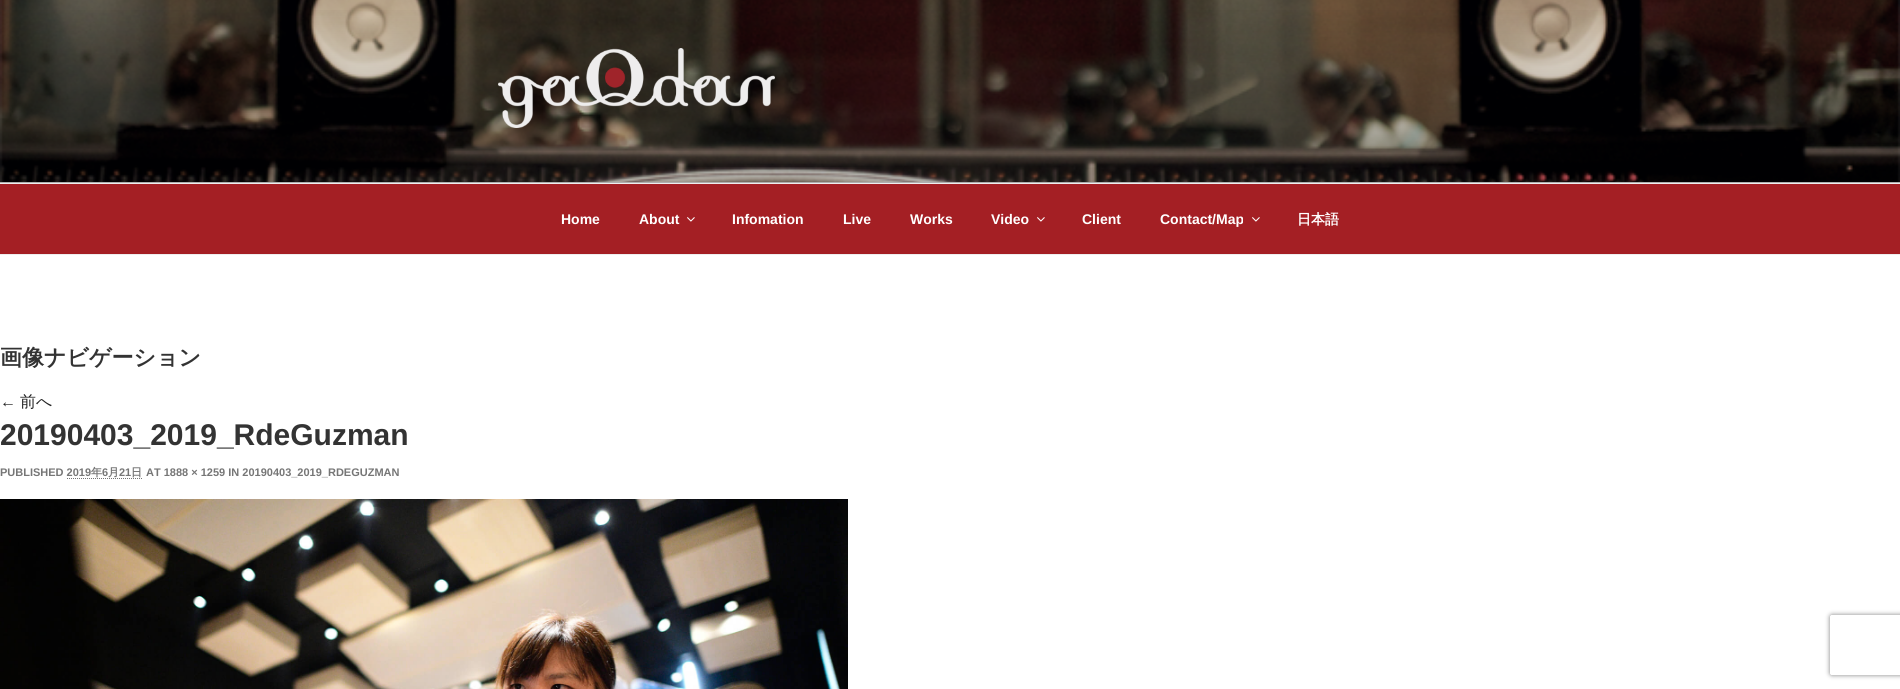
#include <cairo.h>
#include <math.h>
#include <stddef.h>

typedef struct { const char *family; double size; int italic, bold; unsigned color; } style_t;
static cairo_t *ctx;

static void ink(unsigned color) {
    cairo_set_source_rgb(ctx, (color >> 16) / 255.0, (color >> 8 & 255) / 255.0, (color & 255) / 255.0);
}

static void write(double x, double y, const char *s, const style_t *st) {
    cairo_select_font_face(ctx, st->family, st->italic ? CAIRO_FONT_SLANT_ITALIC : CAIRO_FONT_SLANT_NORMAL,
        st->bold ? CAIRO_FONT_WEIGHT_BOLD : CAIRO_FONT_WEIGHT_NORMAL);
    cairo_set_font_size(ctx, st->size);
    ink(st->color);
    cairo_move_to(ctx, x, y);
    cairo_show_text(ctx, s);
}

static void block(double x, double y, double w, double h, unsigned color) {
    ink(color);
    cairo_rectangle(ctx, x, y, w, h);
    cairo_fill(ctx);
}

static void round_path(double x, double y, double w, double h, double r) {
    cairo_new_sub_path(ctx);
    cairo_arc(ctx, x + w - r, y + h - r, r, 0, M_PI / 2);
    cairo_arc(ctx, x + r, y + h - r, r, M_PI / 2, M_PI);
    cairo_arc(ctx, x + r, y + r, r, M_PI, 1.5 * M_PI);
    cairo_arc(ctx, x + w - r, y + r, r, 1.5 * M_PI, 2 * M_PI);
    cairo_close_path(ctx);
}

static void blur_box(double x, double y, double w, double h, double r, double blur, double alpha) {
    cairo_push_group_with_content(ctx, CAIRO_CONTENT_ALPHA);
    cairo_set_operator(ctx, CAIRO_OPERATOR_SOURCE);
    for (int i = 15; i >= -15 && fmin(w, h) + blur * i / 3 > 0; i -= 2) {
        double e = blur * i / 6;
        cairo_set_source_rgba(ctx, 0, 0, 0, alpha * erfc((i - 1) / 8.5) / 2);
        round_path(x - e, y - e, w + 2 * e, h + 2 * e, fmax(0, fmin(r + e + blur * .6, fmin(w, h) / 2 + e)));
        cairo_fill(ctx);
    }
    cairo_pattern_t *soft = cairo_pop_group(ctx);
    cairo_mask(ctx, soft);
    cairo_pattern_destroy(soft);
}

static void paste(const char *path, double x, double y, double w, double h) {
    cairo_surface_t *image = cairo_image_surface_create_from_png(path);
    cairo_save(ctx);
    cairo_set_source_surface(ctx, image, x, y);
    cairo_rectangle(ctx, x, y, w, h);
    cairo_fill(ctx);
    cairo_restore(ctx);
    cairo_surface_destroy(image);
}

static const style_t s1 = {"Liberation Sans", 14, 0, 1, 0xffffff};
static const style_t s2 = {"WenQuanYi Zen Hei", 14, 0, 1, 0xffffff};
static const style_t s3 = {"WenQuanYi Zen Hei", 22, 0, 1, 0x333333};
static const style_t s4 = {"Liberation Sans", 16, 0, 0, 0x222222};
static const style_t s5 = {"WenQuanYi Zen Hei Medium", 16, 0, 0, 0x222222};
static const style_t s6 = {"Liberation Sans", 30, 0, 1, 0x333333};
static const style_t s7 = {"Liberation Sans", 11, 0, 1, 0x767676};
static const style_t s8 = {"WenQuanYi Zen Hei", 11, 0, 1, 0x767676};

int main(void) {
    cairo_surface_t *surface = cairo_image_surface_create(CAIRO_FORMAT_RGB24, 1900, 689);
    ctx = cairo_create(surface);
    cairo_font_options_t *options = cairo_font_options_create();
    cairo_font_options_set_hint_metrics(options, CAIRO_HINT_METRICS_OFF);
    cairo_font_options_set_hint_style(options, CAIRO_HINT_STYLE_NONE);
    cairo_set_font_options(ctx, options);
    cairo_set_miter_limit(ctx, 4);
    cairo_pattern_t *gradient;
    ink(0xffffff);
    cairo_paint(ctx);
    block(0, 0, 1900, 183, 0xfafafa);
    paste("pic1.png", 0, 0, 1900, 182);
    gradient = cairo_pattern_create_linear(950, 0, 950, 183);
    cairo_pattern_add_color_stop_rgba(gradient, 0, 0, 0, 0, 0);
    cairo_pattern_add_color_stop_rgba(gradient, 0.75, 0, 0, 0, 0.3);
    cairo_pattern_add_color_stop_rgba(gradient, 1, 0, 0, 0, 0.3);
    cairo_set_source(ctx, gradient);
    cairo_pattern_destroy(gradient);
    cairo_rectangle(ctx, 0, 10, 1900, 173);
    cairo_fill(ctx);
    paste("pic2.png", 498, 48, 277, 80);
    block(0, 184, 1900, 70, 0xa41f24);
    block(0, 183, 1900, 1, 0xeeeeee);
    block(0, 254, 1900, 1, 0xeeeeee);
    write(561, 224, "Home", &s1);
    write(639, 224, "About", &s1);
    paste("pic3.png", 687, 217, 8, 5);
    write(732, 224, "Infomation", &s1);
    write(843, 224, "Live", &s1);
    write(910, 224, "Works", &s1);
    write(991, 224, "Video", &s1);
    paste("pic3.png", 1037, 217, 8, 5);
    write(1082, 224, "Client", &s1);
    write(1160, 224, "Contact/Map", &s1);
    paste("pic3.png", 1252, 217, 8, 5);
    write(1297, 224, "日本語", &s2);
    write(0, 365, "画像ナビゲーション", &s3);
    write(0, 407, "←", &s4);
    write(20, 407, "前へ", &s5);
    write(0, 445, "20190403_2019_RdeGuzman", &s6);
    write(0, 476, "PUBLISHED 2019", &s7);
    write(91, 476, "年", &s8);
    cairo_new_path(ctx);
    cairo_move_to(ctx, 67, 478.5);
    cairo_line_to(ctx, 142, 478.5);
    cairo_set_line_width(ctx, 1);
    cairo_set_dash(ctx, (double[]){1, 1}, 2, 0);
    cairo_stroke(ctx);
    write(102, 476, "6", &s7);
    write(108, 476, "月", &s8);
    write(119, 476, "21", &s7);
    write(131, 476, "日", &s8);
    write(146, 476, "AT 1888 × 1259 IN 20190403_2019_RDEGUZMAN", &s7);
    paste("pic4.png", 0, 499, 848, 190);
    cairo_save(ctx);
    cairo_set_fill_rule(ctx, CAIRO_FILL_RULE_EVEN_ODD);
    cairo_new_path(ctx);
    cairo_move_to(ctx, 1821, 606);
    cairo_line_to(ctx, 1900, 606);
    cairo_line_to(ctx, 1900, 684);
    cairo_line_to(ctx, 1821, 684);
    cairo_close_path(ctx);
    cairo_move_to(ctx, 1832, 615);
    cairo_line_to(ctx, 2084, 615);
    cairo_curve_to(ctx, 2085, 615, 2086, 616, 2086, 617);
    cairo_line_to(ctx, 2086, 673);
    cairo_curve_to(ctx, 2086, 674, 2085, 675, 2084, 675);
    cairo_line_to(ctx, 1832, 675);
    cairo_curve_to(ctx, 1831, 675, 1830, 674, 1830, 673);
    cairo_line_to(ctx, 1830, 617);
    cairo_curve_to(ctx, 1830, 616, 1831, 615, 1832, 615);
    cairo_close_path(ctx);
    cairo_clip(ctx);
    ink(0x808080);
    blur_box(1830, 615, 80, 60, 2, 2.5, 1);
    cairo_restore(ctx);
    cairo_surface_write_to_png(surface, "screenshot.png");
    cairo_font_options_destroy(options);
    cairo_destroy(ctx);
    cairo_surface_destroy(surface);
    return 0;
}
